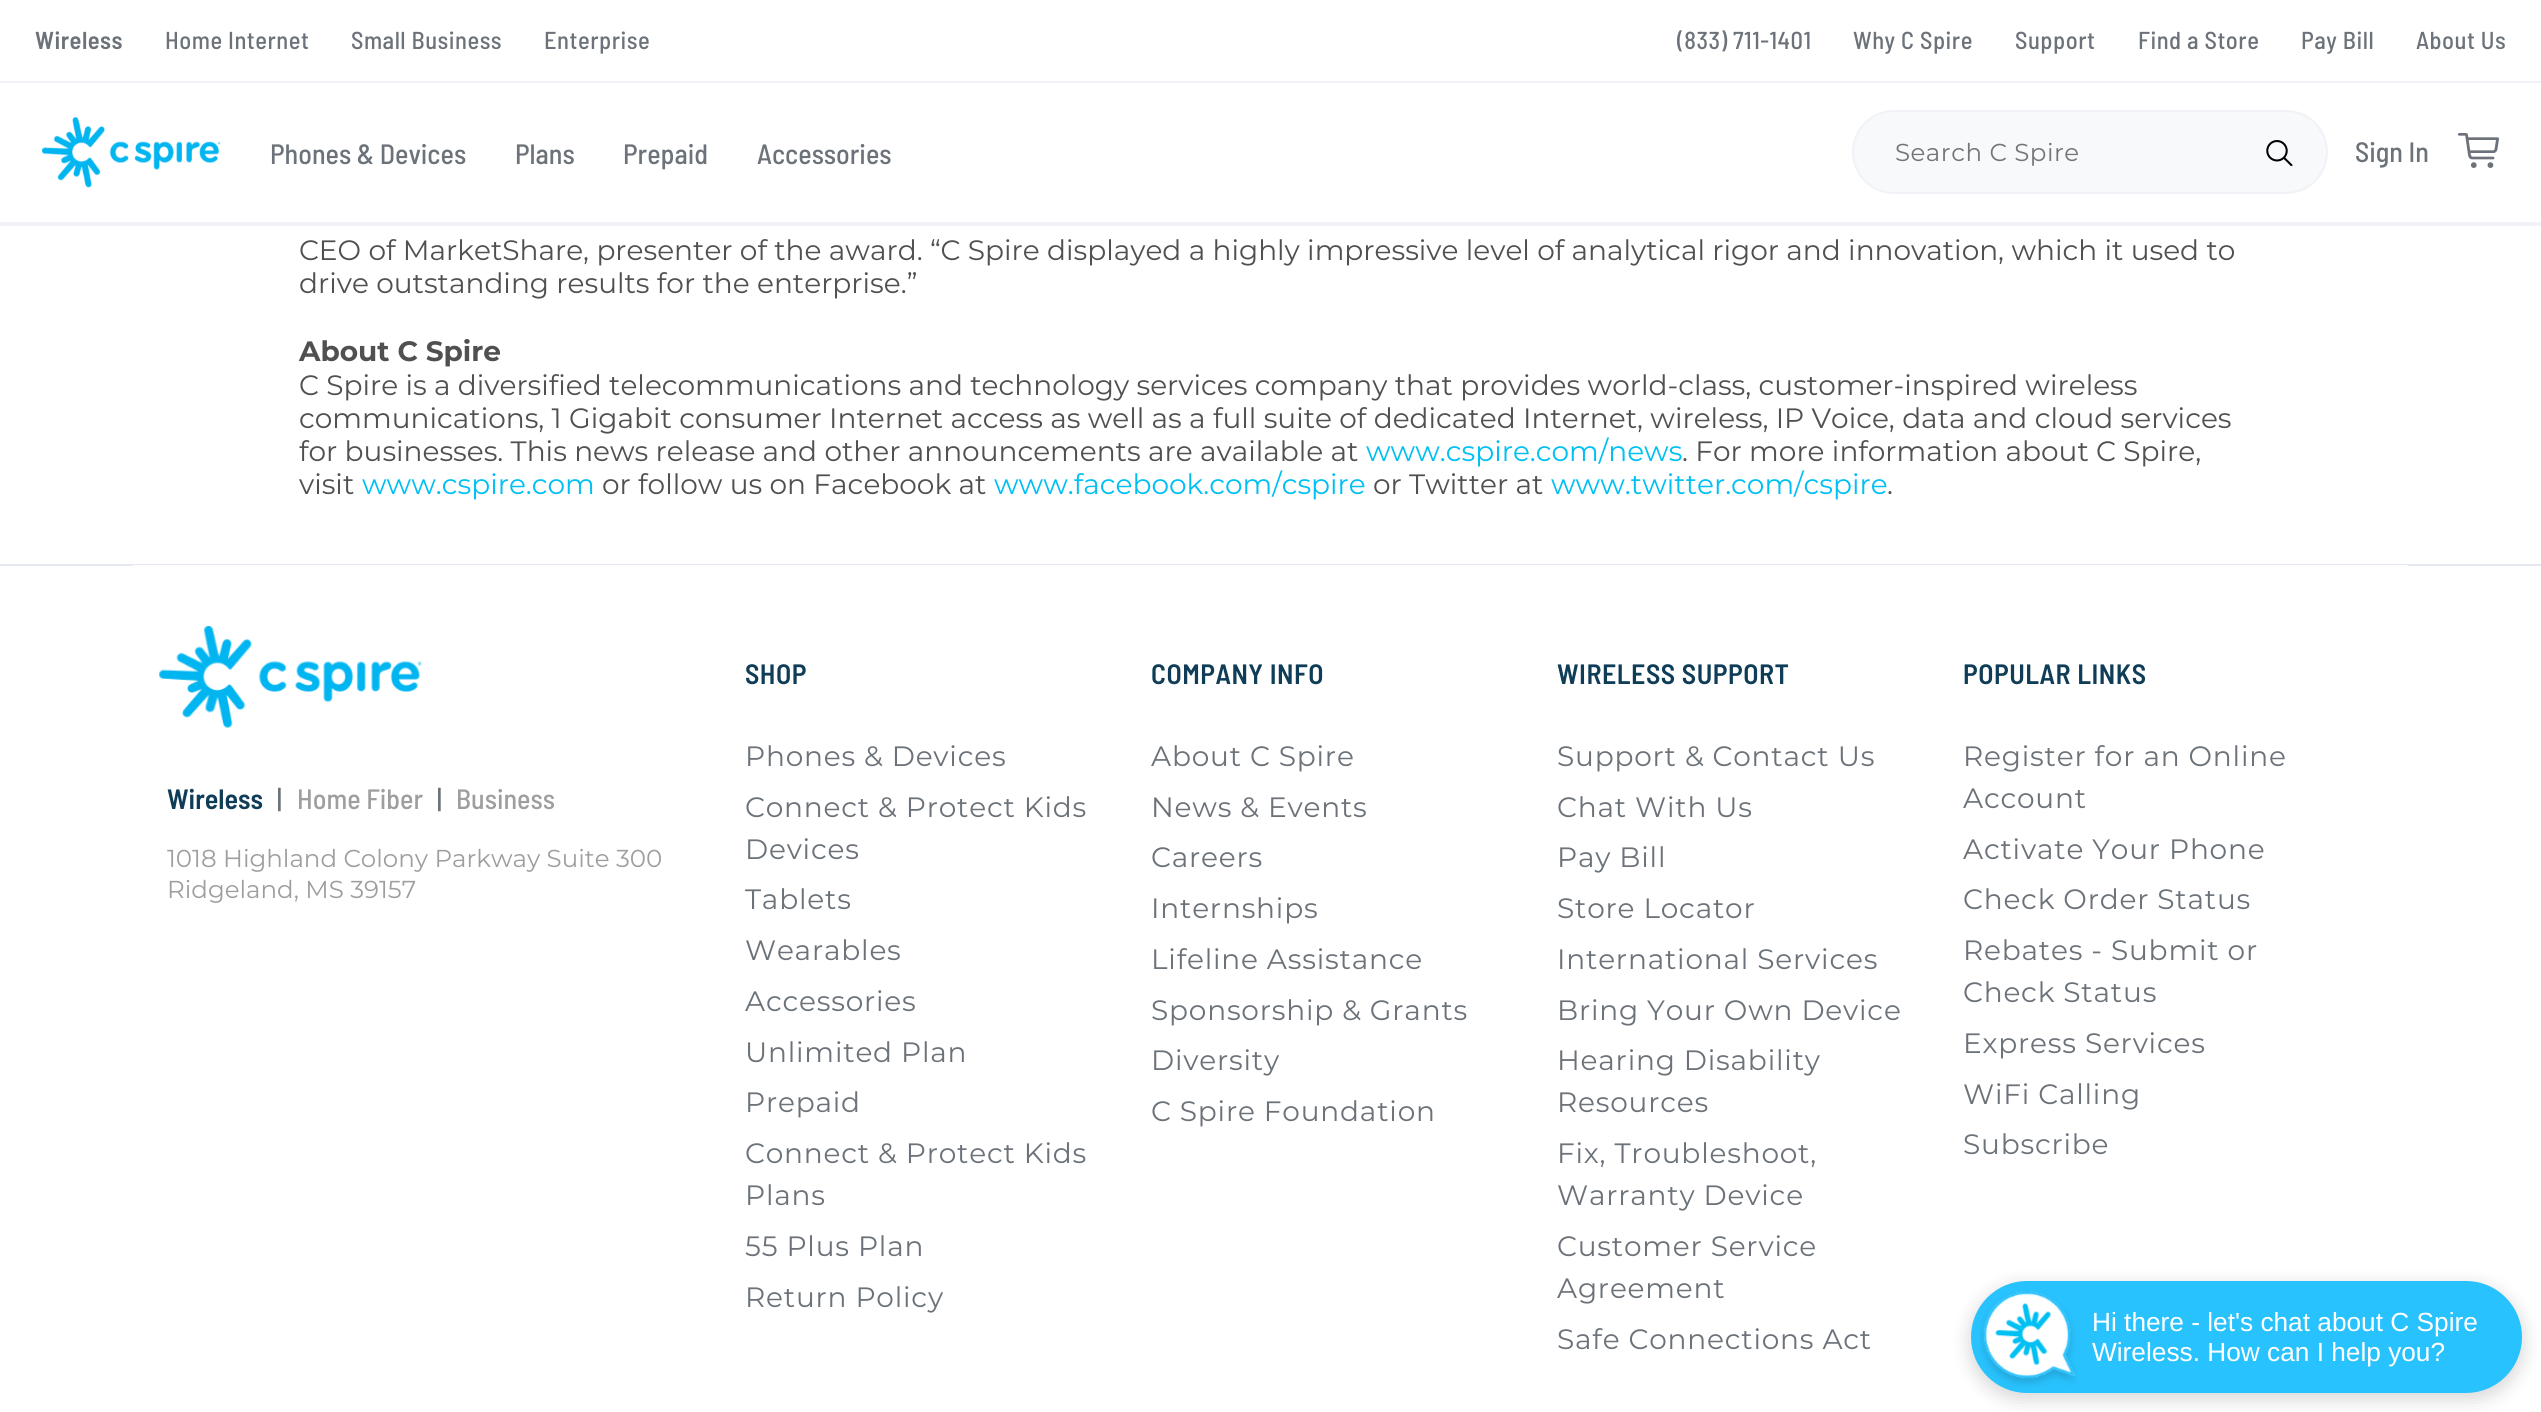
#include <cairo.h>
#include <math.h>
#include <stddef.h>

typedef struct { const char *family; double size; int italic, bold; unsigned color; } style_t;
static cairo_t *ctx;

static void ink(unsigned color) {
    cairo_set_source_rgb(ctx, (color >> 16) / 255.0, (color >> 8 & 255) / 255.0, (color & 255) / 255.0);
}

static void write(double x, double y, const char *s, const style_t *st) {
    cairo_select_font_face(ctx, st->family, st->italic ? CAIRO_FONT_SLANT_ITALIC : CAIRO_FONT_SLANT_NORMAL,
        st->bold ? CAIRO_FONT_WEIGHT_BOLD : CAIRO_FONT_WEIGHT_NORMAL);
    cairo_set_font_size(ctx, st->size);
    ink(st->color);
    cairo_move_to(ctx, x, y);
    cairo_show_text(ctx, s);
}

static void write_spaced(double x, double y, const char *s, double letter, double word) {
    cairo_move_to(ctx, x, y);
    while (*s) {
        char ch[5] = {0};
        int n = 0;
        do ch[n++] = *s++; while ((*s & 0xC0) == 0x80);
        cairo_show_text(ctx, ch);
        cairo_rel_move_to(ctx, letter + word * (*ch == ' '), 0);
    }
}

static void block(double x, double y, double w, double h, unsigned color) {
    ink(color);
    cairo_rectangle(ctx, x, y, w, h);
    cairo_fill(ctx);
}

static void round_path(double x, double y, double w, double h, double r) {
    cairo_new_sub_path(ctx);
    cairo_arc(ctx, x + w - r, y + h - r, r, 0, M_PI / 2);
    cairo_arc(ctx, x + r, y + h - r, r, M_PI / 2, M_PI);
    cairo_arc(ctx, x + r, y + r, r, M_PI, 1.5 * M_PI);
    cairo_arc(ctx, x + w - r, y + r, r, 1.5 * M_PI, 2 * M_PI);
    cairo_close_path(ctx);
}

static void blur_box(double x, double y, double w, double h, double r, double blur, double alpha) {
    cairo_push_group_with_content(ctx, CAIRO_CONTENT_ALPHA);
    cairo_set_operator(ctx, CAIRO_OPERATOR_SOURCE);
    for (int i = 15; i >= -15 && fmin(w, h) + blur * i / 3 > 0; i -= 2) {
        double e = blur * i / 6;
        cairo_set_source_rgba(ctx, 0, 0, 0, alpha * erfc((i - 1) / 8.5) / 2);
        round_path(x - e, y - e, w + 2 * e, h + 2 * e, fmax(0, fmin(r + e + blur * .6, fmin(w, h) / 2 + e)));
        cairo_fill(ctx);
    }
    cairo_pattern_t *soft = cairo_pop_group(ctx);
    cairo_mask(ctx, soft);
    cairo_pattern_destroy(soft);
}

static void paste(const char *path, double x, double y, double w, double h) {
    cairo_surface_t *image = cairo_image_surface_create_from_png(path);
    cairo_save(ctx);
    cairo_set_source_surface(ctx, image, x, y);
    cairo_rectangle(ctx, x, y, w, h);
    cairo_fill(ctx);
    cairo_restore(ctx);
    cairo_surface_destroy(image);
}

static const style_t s1 = {"Barlow Semi Condensed Medium", 28, 0, 0, 0x6c7279};
static const style_t s2 = {"Montserrat", 28, 0, 0, 0x505050};
static const style_t s3 = {"Montserrat", 28, 0, 1, 0x505050};
static const style_t s4 = {"Montserrat", 28, 0, 0, 0x00c0f3};
static const style_t s5 = {"Barlow Semi Condensed SemiBold", 28, 0, 0, 0x0f3d58};
static const style_t s6 = {"Barlow Semi Condensed Medium", 28, 0, 0, 0x9e9e9e};
static const style_t s7 = {"Montserrat", 24.5, 0, 0, 0x9e9e9e};
static const style_t s8 = {"Liberation Sans", 26.25, 0, 0, 0xffffff};

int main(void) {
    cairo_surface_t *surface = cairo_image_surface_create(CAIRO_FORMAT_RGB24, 2541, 1412);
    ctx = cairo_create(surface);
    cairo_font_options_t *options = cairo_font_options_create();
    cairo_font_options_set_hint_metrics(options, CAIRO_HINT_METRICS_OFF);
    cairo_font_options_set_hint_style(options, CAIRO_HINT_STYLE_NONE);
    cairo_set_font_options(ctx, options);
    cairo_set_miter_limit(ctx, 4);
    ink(0xffffff);
    cairo_paint(ctx);
    cairo_select_font_face(ctx, "Barlow Semi Condensed SemiBold", CAIRO_FONT_SLANT_NORMAL, CAIRO_FONT_WEIGHT_NORMAL);
    cairo_set_font_size(ctx, 24.5);
    ink(0x6c7279);
    write_spaced(35, 49, "Wireless", 0.5, 0);
    cairo_select_font_face(ctx, "Barlow Semi Condensed Medium", CAIRO_FONT_SLANT_NORMAL, CAIRO_FONT_WEIGHT_NORMAL);
    write_spaced(165, 49, "Home Internet", 0.5, 0);
    write_spaced(351, 49, "Small Business", 0.5, 0);
    write_spaced(544, 49, "Enterprise", 0.5, 0);
    write_spaced(1677, 49, "(833) 711-1401", 0.5, 0);
    write_spaced(1853, 49, "Why C Spire", 0.5, 0);
    write_spaced(2015, 49, "Support", 0.5, 0);
    write_spaced(2138, 49, "Find a Store", 0.5, 0);
    write_spaced(2301, 49, "Pay Bill", 0.5, 0);
    write_spaced(2416, 49, "About Us", 0.5, 0);
    block(0, 81, 2541, 2, 0xf0f2f7);
    block(0, 222, 2541, 4, 0xf0f2f7);
    paste("pic1.png", 42, 117, 179, 71);
    write(270, 164, "Phones & Devices", &s1);
    write(515, 164, "Plans", &s1);
    write(623, 164, "Prepaid", &s1);
    write(757, 164, "Accessories", &s1);
    ink(0xf7f9fb);
    round_path(1853, 111, 474, 82, 41);
    cairo_fill_preserve(ctx);
    ink(0xf0f2f7);
    cairo_stroke(ctx);
    cairo_select_font_face(ctx, "Montserrat", CAIRO_FONT_SLANT_NORMAL, CAIRO_FONT_WEIGHT_NORMAL);
    cairo_set_font_size(ctx, 24.5);
    ink(0x757575);
    write_spaced(1895, 161, "Search C Spire", 0.5, 0);
    paste("pic2.png", 2266, 140, 27, 26);
    write(2355, 162, "Sign In", &s1);
    paste("pic3.png", 2457, 133, 42, 35);
    write(299, 260, "CEO of MarketShare, presenter of the award. “C Spire displayed a highly impressive level of analytical rigor and innovation, which it used to", &s2);
    write(299, 293, "drive outstanding results for the enterprise.”", &s2);
    write(299, 361, "About C Spire", &s3);
    write(299, 395, "C Spire is a diversified telecommunications and technology services company that provides world-class, customer-inspired wireless", &s2);
    write(299, 428, "communications, 1 Gigabit consumer Internet access as well as a full suite of dedicated Internet, wireless, IP Voice, data and cloud services", &s2);
    write(299, 461, "for businesses. This news release and other announcements are available at", &s2);
    write(1366, 461, "www.cspire.com/news", &s4);
    write(1682, 461, ". For more information about C Spire,", &s2);
    write(299, 494, "visit", &s2);
    write(362, 494, "www.cspire.com", &s4);
    write(602, 494, "or follow us on Facebook at", &s2);
    write(994, 494, "www.facebook.com/cspire", &s4);
    write(1373, 494, "or Twitter at", &s2);
    write(1551, 494, "www.twitter.com/cspire", &s4);
    write(1887, 494, ".", &s2);
    block(0, 564, 2541, 2, 0xe4e8f0);
    block(133, 565, 2275, 1, 0xffffff);
    paste("pic4.png", 159, 626, 263, 102);
    write(167, 809, "Wireless", &s5);
    write(277, 809, "|", &s1);
    write(297, 809, "Home Fiber", &s6);
    write(437, 809, "|", &s1);
    write(456, 809, "Business", &s6);
    write(167, 867, "1018 Highland Colony Parkway Suite 300", &s7);
    write(167, 898, "Ridgeland, MS 39157", &s7);
    cairo_select_font_face(ctx, "Barlow Semi Condensed SemiBold", CAIRO_FONT_SLANT_NORMAL, CAIRO_FONT_WEIGHT_NORMAL);
    cairo_set_font_size(ctx, 28);
    ink(0x0f3d58);
    write_spaced(745, 684, "SHOP", 0.5, 0);
    cairo_select_font_face(ctx, "Montserrat", CAIRO_FONT_SLANT_NORMAL, CAIRO_FONT_WEIGHT_NORMAL);
    ink(0x6c7279);
    write_spaced(745, 766, "Phones & Devices", 0.8, 0);
    write_spaced(745, 817, "Connect & Protect Kids", 0.8, 0);
    write_spaced(745, 859, "Devices", 0.8, 0);
    write_spaced(745, 909, "Tablets", 0.8, 0);
    write_spaced(745, 960, "Wearables", 0.8, 0);
    write_spaced(745, 1011, "Accessories", 0.8, 0);
    write_spaced(745, 1062, "Unlimited Plan", 0.8, 0);
    write_spaced(745, 1112, "Prepaid", 0.8, 0);
    write_spaced(745, 1163, "Connect & Protect Kids", 0.8, 0);
    write_spaced(745, 1205, "Plans", 0.8, 0);
    write_spaced(745, 1256, "55 Plus Plan", 0.8, 0);
    write_spaced(745, 1307, "Return Policy", 0.8, 0);
    cairo_select_font_face(ctx, "Barlow Semi Condensed SemiBold", CAIRO_FONT_SLANT_NORMAL, CAIRO_FONT_WEIGHT_NORMAL);
    ink(0x0f3d58);
    write_spaced(1151, 684, "COMPANY INFO", 0.5, 0);
    cairo_select_font_face(ctx, "Montserrat", CAIRO_FONT_SLANT_NORMAL, CAIRO_FONT_WEIGHT_NORMAL);
    ink(0x6c7279);
    write_spaced(1151, 766, "About C Spire", 0.8, 0);
    write_spaced(1151, 817, "News & Events", 0.8, 0);
    write_spaced(1151, 867, "Careers", 0.8, 0);
    write_spaced(1151, 918, "Internships", 0.8, 0);
    write_spaced(1151, 969, "Lifeline Assistance", 0.8, 0);
    write_spaced(1151, 1020, "Sponsorship & Grants", 0.8, 0);
    write_spaced(1151, 1070, "Diversity", 0.8, 0);
    write_spaced(1151, 1121, "C Spire Foundation", 0.8, 0);
    cairo_select_font_face(ctx, "Barlow Semi Condensed SemiBold", CAIRO_FONT_SLANT_NORMAL, CAIRO_FONT_WEIGHT_NORMAL);
    ink(0x0f3d58);
    write_spaced(1557, 684, "WIRELESS SUPPORT", 0.5, 0);
    cairo_select_font_face(ctx, "Montserrat", CAIRO_FONT_SLANT_NORMAL, CAIRO_FONT_WEIGHT_NORMAL);
    ink(0x6c7279);
    write_spaced(1557, 766, "Support & Contact Us", 0.8, 0);
    write_spaced(1557, 817, "Chat With Us", 0.8, 0);
    write_spaced(1557, 867, "Pay Bill", 0.8, 0);
    write_spaced(1557, 918, "Store Locator", 0.8, 0);
    write_spaced(1557, 969, "International Services", 0.8, 0);
    write_spaced(1557, 1020, "Bring Your Own Device", 0.8, 0);
    write_spaced(1557, 1070, "Hearing Disability", 0.8, 0);
    write_spaced(1557, 1112, "Resources", 0.8, 0);
    write_spaced(1557, 1163, "Fix, Troubleshoot,", 0.8, 0);
    write_spaced(1557, 1205, "Warranty Device", 0.8, 0);
    write_spaced(1557, 1256, "Customer Service", 0.8, 0);
    write_spaced(1557, 1298, "Agreement", 0.8, 0);
    write_spaced(1557, 1349, "Safe Connections Act", 0.8, 0);
    cairo_select_font_face(ctx, "Barlow Semi Condensed SemiBold", CAIRO_FONT_SLANT_NORMAL, CAIRO_FONT_WEIGHT_NORMAL);
    ink(0x0f3d58);
    write_spaced(1963, 684, "POPULAR LINKS", 0.5, 0);
    cairo_select_font_face(ctx, "Montserrat", CAIRO_FONT_SLANT_NORMAL, CAIRO_FONT_WEIGHT_NORMAL);
    ink(0x6c7279);
    write_spaced(1963, 766, "Register for an Online", 0.8, 0);
    write_spaced(1963, 808, "Account", 0.8, 0);
    write_spaced(1963, 859, "Activate Your Phone", 0.8, 0);
    write_spaced(1963, 909, "Check Order Status", 0.8, 0);
    write_spaced(1963, 960, "Rebates - Submit or", 0.8, 0);
    write_spaced(1963, 1002, "Check Status", 0.8, 0);
    write_spaced(1963, 1053, "Express Services", 0.8, 0);
    write_spaced(1963, 1104, "WiFi Calling", 0.8, 0);
    write_spaced(1963, 1154, "Subscribe", 0.8, 0);
    ink(0x000000);
    blur_box(1969, 1285, 555, 115, 57.5, 9, 0.15);
    ink(0x28c2fe);
    round_path(1971, 1281, 551, 112, 56);
    cairo_fill(ctx);
    paste("pic5.png", 1980, 1291, 97, 96);
    write(2092, 1331, "Hi there - let's chat about C Spire", &s8);
    write(2092, 1361, "Wireless. How can I help you?", &s8);
    cairo_surface_write_to_png(surface, "screenshot.png");
    cairo_font_options_destroy(options);
    cairo_destroy(ctx);
    cairo_surface_destroy(surface);
    return 0;
}
